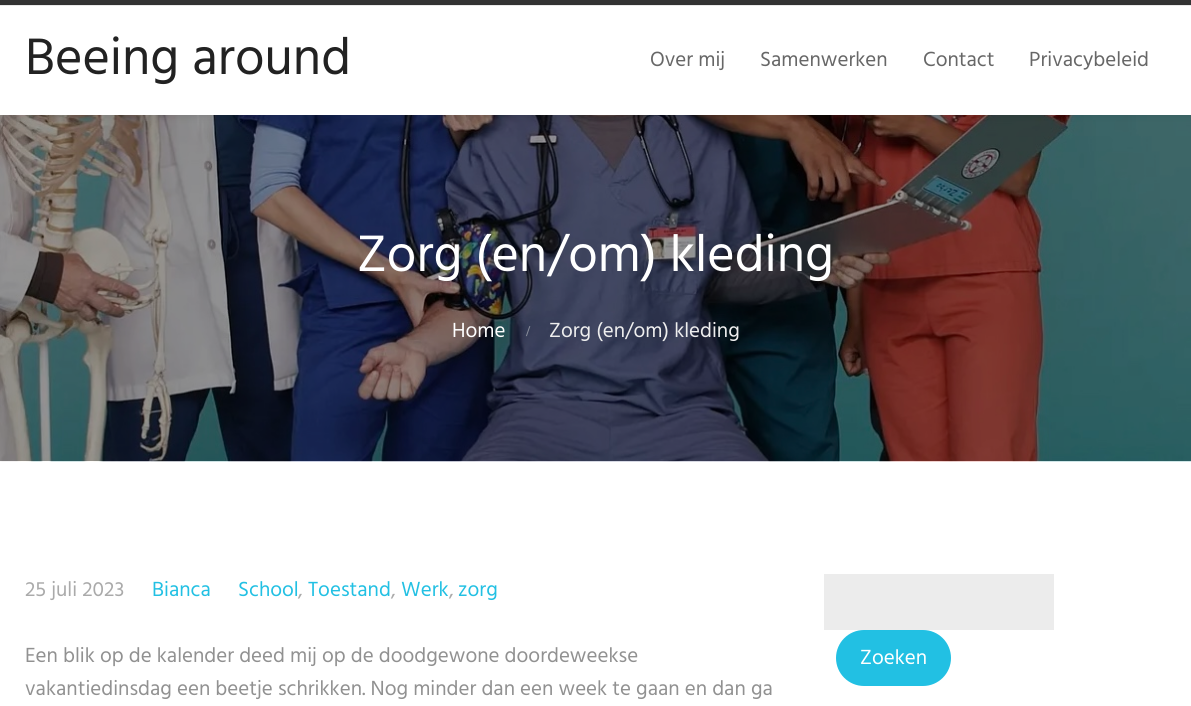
#include <cairo.h>
#include <math.h>
#include <stddef.h>

typedef struct { const char *family; double size; int italic, bold; unsigned color; } style_t;
static cairo_t *ctx;

static void ink(unsigned color) {
    cairo_set_source_rgb(ctx, (color >> 16) / 255.0, (color >> 8 & 255) / 255.0, (color & 255) / 255.0);
}

static void write(double x, double y, const char *s, const style_t *st) {
    cairo_select_font_face(ctx, st->family, st->italic ? CAIRO_FONT_SLANT_ITALIC : CAIRO_FONT_SLANT_NORMAL,
        st->bold ? CAIRO_FONT_WEIGHT_BOLD : CAIRO_FONT_WEIGHT_NORMAL);
    cairo_set_font_size(ctx, st->size);
    ink(st->color);
    cairo_move_to(ctx, x, y);
    cairo_show_text(ctx, s);
}

static void block(double x, double y, double w, double h, unsigned color) {
    ink(color);
    cairo_rectangle(ctx, x, y, w, h);
    cairo_fill(ctx);
}

static void round_path(double x, double y, double w, double h, double r) {
    cairo_new_sub_path(ctx);
    cairo_arc(ctx, x + w - r, y + h - r, r, 0, M_PI / 2);
    cairo_arc(ctx, x + r, y + h - r, r, M_PI / 2, M_PI);
    cairo_arc(ctx, x + r, y + r, r, M_PI, 1.5 * M_PI);
    cairo_arc(ctx, x + w - r, y + r, r, 1.5 * M_PI, 2 * M_PI);
    cairo_close_path(ctx);
}

static void blur_box(double x, double y, double w, double h, double r, double blur, double alpha) {
    cairo_push_group_with_content(ctx, CAIRO_CONTENT_ALPHA);
    cairo_set_operator(ctx, CAIRO_OPERATOR_SOURCE);
    for (int i = 15; i >= -15 && fmin(w, h) + blur * i / 3 > 0; i -= 2) {
        double e = blur * i / 6;
        cairo_set_source_rgba(ctx, 0, 0, 0, alpha * erfc((i - 1) / 8.5) / 2);
        round_path(x - e, y - e, w + 2 * e, h + 2 * e, fmax(0, fmin(r + e + blur * .6, fmin(w, h) / 2 + e)));
        cairo_fill(ctx);
    }
    cairo_pattern_t *soft = cairo_pop_group(ctx);
    cairo_mask(ctx, soft);
    cairo_pattern_destroy(soft);
}

static void paste(const char *path, double x, double y, double w, double h) {
    cairo_surface_t *image = cairo_image_surface_create_from_png(path);
    cairo_save(ctx);
    cairo_set_source_surface(ctx, image, x, y);
    cairo_rectangle(ctx, x, y, w, h);
    cairo_fill(ctx);
    cairo_restore(ctx);
    cairo_surface_destroy(image);
}

static const style_t s1 = {"Hind", 52.5, 0, 0, 0x222222};
static const style_t s2 = {"Hind", 21, 0, 0, 0x676767};
static const style_t s3 = {"Hind", 52.5, 0, 0, 0xffffff};
static const style_t s4 = {"Hind", 21, 0, 0, 0xffffff};
static const style_t s5 = {"Liberation Serif", 15, 0, 1, 0x898d9a};
static const style_t s6 = {"Hind", 21, 0, 0, 0xeeeeee};
static const style_t s7 = {"Hind", 21, 0, 0, 0xaaaaaa};
static const style_t s8 = {"Hind", 21, 0, 0, 0x22c0e3};
static const style_t s9 = {"Hind", 21, 0, 0, 0x919191};

int main(void) {
    cairo_surface_t *surface = cairo_image_surface_create(CAIRO_FORMAT_RGB24, 1191, 706);
    ctx = cairo_create(surface);
    cairo_font_options_t *options = cairo_font_options_create();
    cairo_font_options_set_hint_metrics(options, CAIRO_HINT_METRICS_OFF);
    cairo_font_options_set_hint_style(options, CAIRO_HINT_STYLE_NONE);
    cairo_set_font_options(ctx, options);
    cairo_set_miter_limit(ctx, 4);
    ink(0xffffff);
    cairo_paint(ctx);
    block(0, 0, 1191, 5, 0x333333);
    block(0, 5, 1191, 1, 0xeeeeee);
    paste("pic1.png", 0, 115, 1191, 347);
    ink(0x000000);
    blur_box(0, 8, 1191, 108, 0, 4, 0.09);
    block(0, 6, 1191, 109, 0xffffff);
    write(25, 74, "Beeing around", &s1);
    write(650, 66, "Over mij", &s2);
    write(760, 66, "Samenwerken", &s2);
    write(923, 66, "Contact", &s2);
    write(1029, 66, "Privacybeleid", &s2);
    write(357, 271, "Zorg (en/om) kleding", &s3);
    write(452, 337, "Home", &s4);
    write(526, 336, "/", &s5);
    write(549, 337, "Zorg (en/om) kleding", &s6);
    write(25, 596, "25 juli 2023", &s7);
    write(152, 596, "Bianca", &s8);
    write(238, 596, "School", &s8);
    write(298, 596, ",", &s7);
    write(308, 596, "Toestand", &s8);
    write(391, 596, ",", &s7);
    write(401, 596, "Werk", &s8);
    write(449, 596, ",", &s7);
    write(458, 596, "zorg", &s8);
    write(25, 662, "Een blik op de kalender deed mij op de doodgewone doordeweekse", &s9);
    write(25, 695, "vakantiedinsdag een beetje schrikken. Nog minder dan een week te gaan en dan ga", &s9);
    block(824, 574, 230, 56, 0xececec);
    ink(0x22c0e3);
    round_path(836, 630, 115, 56, 28);
    cairo_fill(ctx);
    write(860, 664, "Zoeken", &s4);
    cairo_surface_write_to_png(surface, "screenshot.png");
    cairo_font_options_destroy(options);
    cairo_destroy(ctx);
    cairo_surface_destroy(surface);
    return 0;
}
